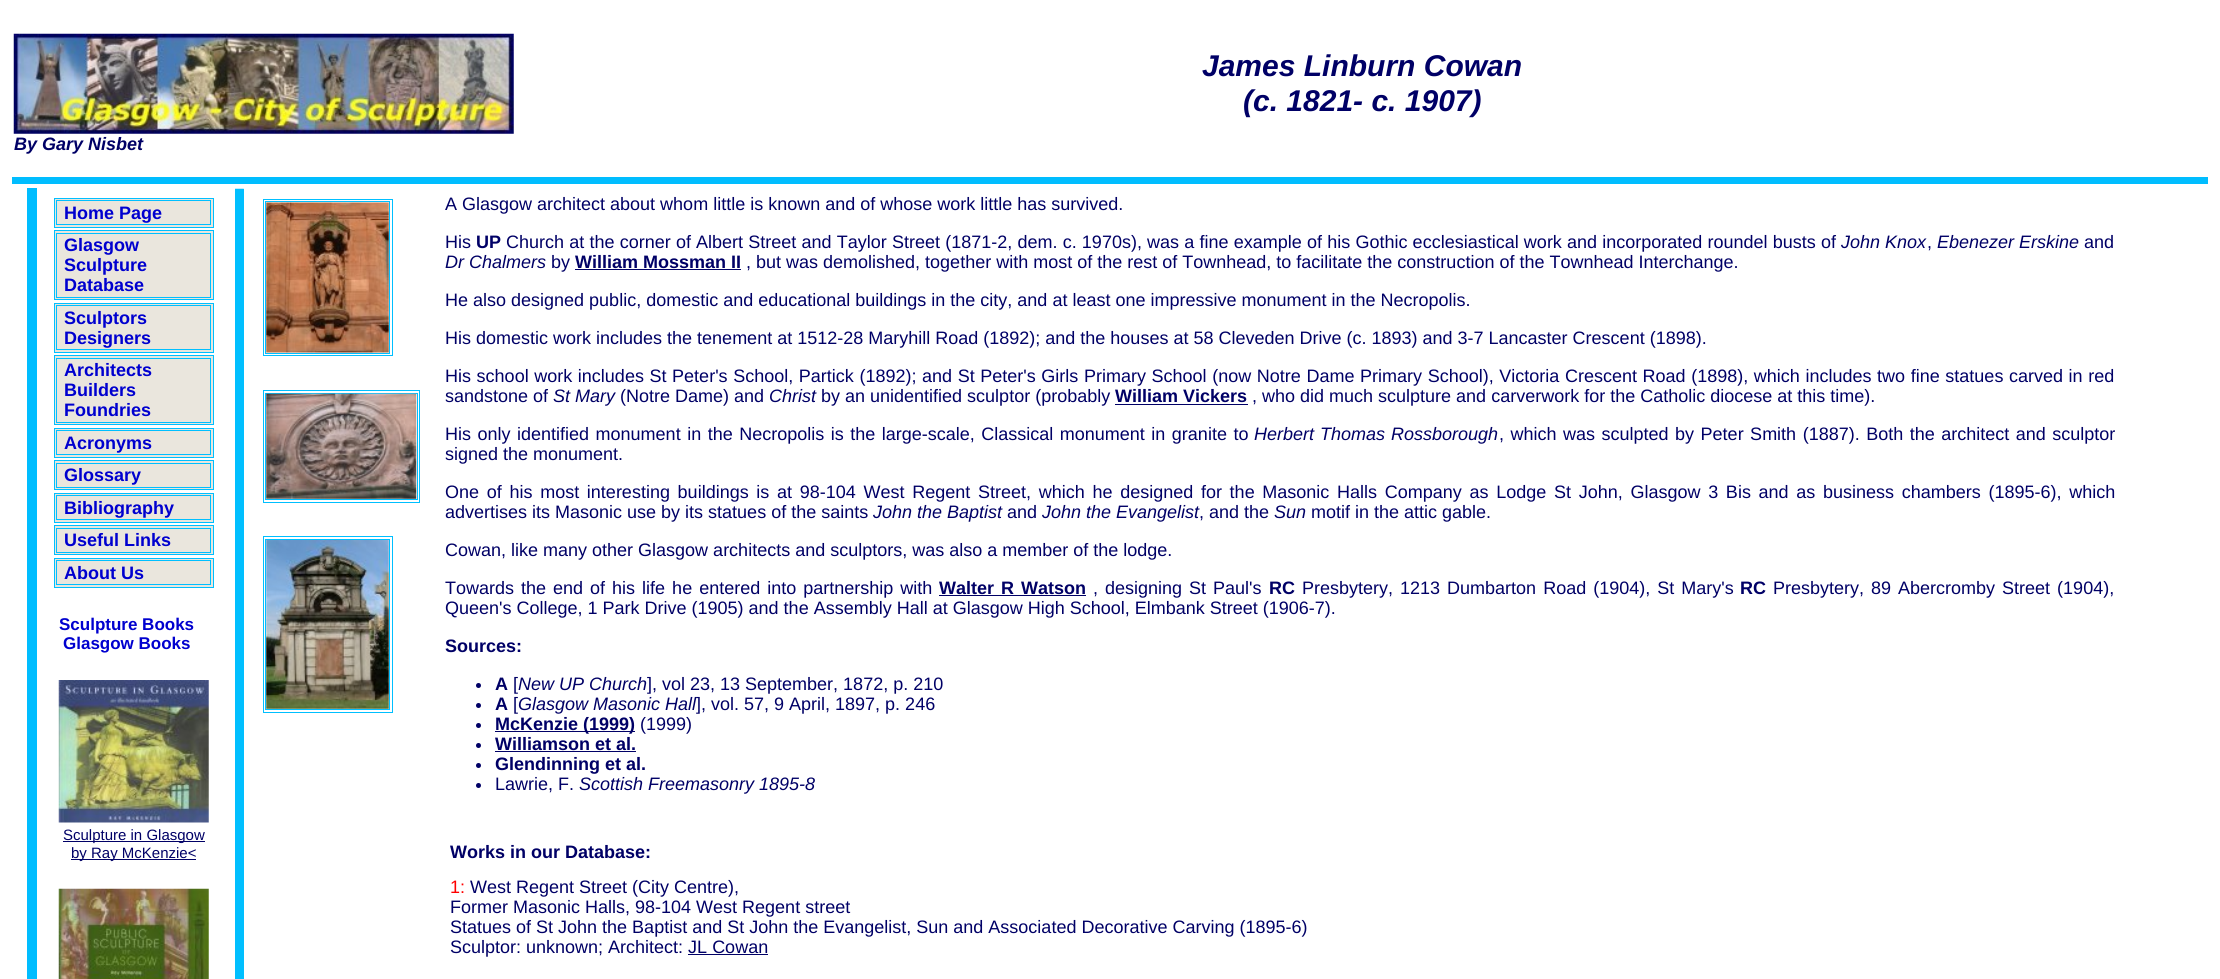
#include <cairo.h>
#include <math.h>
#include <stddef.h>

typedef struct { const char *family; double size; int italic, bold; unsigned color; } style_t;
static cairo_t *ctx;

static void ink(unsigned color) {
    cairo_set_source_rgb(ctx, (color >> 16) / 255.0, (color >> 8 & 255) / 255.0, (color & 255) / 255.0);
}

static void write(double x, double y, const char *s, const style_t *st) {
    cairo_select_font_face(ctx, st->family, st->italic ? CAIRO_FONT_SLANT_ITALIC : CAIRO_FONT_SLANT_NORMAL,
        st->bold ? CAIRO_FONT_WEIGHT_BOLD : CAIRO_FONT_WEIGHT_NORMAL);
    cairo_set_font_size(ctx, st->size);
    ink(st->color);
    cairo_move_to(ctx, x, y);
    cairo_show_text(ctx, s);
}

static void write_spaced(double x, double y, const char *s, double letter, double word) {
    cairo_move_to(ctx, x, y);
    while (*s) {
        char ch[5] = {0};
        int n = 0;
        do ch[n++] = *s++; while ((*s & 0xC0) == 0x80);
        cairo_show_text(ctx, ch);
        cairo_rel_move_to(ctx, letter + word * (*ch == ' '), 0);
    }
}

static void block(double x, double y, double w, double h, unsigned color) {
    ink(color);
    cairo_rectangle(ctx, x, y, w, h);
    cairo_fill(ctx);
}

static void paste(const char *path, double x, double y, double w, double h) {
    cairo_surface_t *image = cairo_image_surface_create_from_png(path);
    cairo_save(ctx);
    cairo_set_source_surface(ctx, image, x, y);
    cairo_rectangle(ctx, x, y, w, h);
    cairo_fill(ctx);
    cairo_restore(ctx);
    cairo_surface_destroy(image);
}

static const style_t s1 = {"Liberation Sans", 30, 1, 1, 0x000066};
static const style_t s2 = {"Liberation Sans", 18, 1, 1, 0x000066};
static const style_t s3 = {"Liberation Sans", 18, 0, 1, 0x0000cf};
static const style_t s4 = {"Liberation Sans", 17, 0, 1, 0x0000cf};
static const style_t s5 = {"Liberation Sans", 15, 0, 0, 0x000066};
static const style_t s6 = {"Liberation Sans", 18, 0, 0, 0x000066};
static const style_t s7 = {"Liberation Sans", 18, 0, 1, 0x000066};
static const style_t s8 = {"Liberation Sans", 18, 1, 0, 0x000066};
static const style_t s9 = {"Liberation Sans", 18, 0, 0, 0xff0000};

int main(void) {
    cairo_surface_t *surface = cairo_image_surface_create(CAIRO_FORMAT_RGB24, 2220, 979);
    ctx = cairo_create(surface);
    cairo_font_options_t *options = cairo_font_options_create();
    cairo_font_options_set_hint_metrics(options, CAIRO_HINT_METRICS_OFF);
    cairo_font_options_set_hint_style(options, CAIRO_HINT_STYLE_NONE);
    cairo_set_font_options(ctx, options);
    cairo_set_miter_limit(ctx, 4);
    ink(0xffffff);
    cairo_paint(ctx);
    write(1202, 76, "James Linburn Cowan", &s1);
    write(1243, 111, "(c. 1821- c. 1907)", &s1);
    paste("pic1.png", 13, 33, 501, 101);
    write(14, 150, "By Gary Nisbet", &s2);
    block(12, 177, 2196, 7, 0x00bdff);
    block(27, 188, 10, 791, 0x00bdff);
    ink(0xeae6dd);
    cairo_rectangle(ctx, 54.5, 198.5, 159, 29);
    cairo_fill_preserve(ctx);
    ink(0x00bfff);
    cairo_set_line_width(ctx, 1);
    cairo_stroke(ctx);
    cairo_rectangle(ctx, 56.5, 200.5, 154, 24);
    cairo_stroke(ctx);
    write(64, 219, "Home Page", &s3);
    ink(0xeae6dd);
    cairo_rectangle(ctx, 54.5, 230.5, 159, 69);
    cairo_fill_preserve(ctx);
    ink(0x00bfff);
    cairo_stroke(ctx);
    cairo_rectangle(ctx, 56.5, 233.5, 154, 64);
    cairo_stroke(ctx);
    write(64, 251, "Glasgow", &s3);
    write(64, 271, "Sculpture", &s3);
    write(64, 291, "Database", &s3);
    ink(0xeae6dd);
    cairo_rectangle(ctx, 54.5, 303.5, 159, 49);
    cairo_fill_preserve(ctx);
    ink(0x00bfff);
    cairo_stroke(ctx);
    cairo_rectangle(ctx, 56.5, 305.5, 154, 44);
    cairo_stroke(ctx);
    write(64, 324, "Sculptors", &s3);
    write(64, 344, "Designers", &s3);
    ink(0xeae6dd);
    cairo_rectangle(ctx, 54.5, 355.5, 159, 69);
    cairo_fill_preserve(ctx);
    ink(0x00bfff);
    cairo_stroke(ctx);
    cairo_rectangle(ctx, 56.5, 358.5, 154, 64);
    cairo_stroke(ctx);
    write(64, 376, "Architects", &s3);
    write(64, 396, "Builders", &s3);
    write(64, 416, "Foundries", &s3);
    ink(0xeae6dd);
    cairo_rectangle(ctx, 54.5, 428.5, 159, 29);
    cairo_fill_preserve(ctx);
    ink(0x00bfff);
    cairo_stroke(ctx);
    cairo_rectangle(ctx, 56.5, 430.5, 154, 24);
    cairo_stroke(ctx);
    write(64, 449, "Acronyms", &s3);
    ink(0xeae6dd);
    cairo_rectangle(ctx, 54.5, 460.5, 159, 29);
    cairo_fill_preserve(ctx);
    ink(0x00bfff);
    cairo_stroke(ctx);
    cairo_rectangle(ctx, 56.5, 463.5, 154, 24);
    cairo_stroke(ctx);
    write(64, 481, "Glossary", &s3);
    ink(0xeae6dd);
    cairo_rectangle(ctx, 54.5, 493.5, 159, 29);
    cairo_fill_preserve(ctx);
    ink(0x00bfff);
    cairo_stroke(ctx);
    cairo_rectangle(ctx, 56.5, 495.5, 154, 24);
    cairo_stroke(ctx);
    write(64, 514, "Bibliography", &s3);
    ink(0xeae6dd);
    cairo_rectangle(ctx, 54.5, 525.5, 159, 29);
    cairo_fill_preserve(ctx);
    ink(0x00bfff);
    cairo_stroke(ctx);
    cairo_rectangle(ctx, 56.5, 528.5, 154, 24);
    cairo_stroke(ctx);
    write(64, 546, "Useful Links", &s3);
    ink(0xeae6dd);
    cairo_rectangle(ctx, 54.5, 558.5, 159, 29);
    cairo_fill_preserve(ctx);
    ink(0x00bfff);
    cairo_stroke(ctx);
    cairo_rectangle(ctx, 56.5, 560.5, 154, 24);
    cairo_stroke(ctx);
    write(64, 579, "About Us", &s3);
    write(59, 630, "Sculpture Books", &s4);
    write(63, 649, "Glasgow Books", &s4);
    paste("pic2.png", 58, 680, 151, 143);
    block(63, 841, 142, 1, 0x000066);
    write(63, 840, "Sculpture in Glasgow", &s5);
    block(71, 859, 125, 1, 0x000066);
    write(71, 858, "by Ray McKenzie<", &s5);
    paste("pic3.png", 58, 888, 151, 91);
    block(235, 189, 9, 790, 0x00bfff);
    paste("pic4.png", 235, 188, 9, 1);
    cairo_rectangle(ctx, 263.5, 199.5, 129, 156);
    cairo_stroke(ctx);
    cairo_rectangle(ctx, 265.5, 201.5, 124, 152);
    cairo_stroke(ctx);
    paste("pic5.png", 266, 202, 123, 151);
    cairo_rectangle(ctx, 263.5, 390.5, 156, 112);
    cairo_stroke(ctx);
    cairo_rectangle(ctx, 265.5, 393.5, 152, 106);
    cairo_stroke(ctx);
    paste("pic6.png", 266, 393, 151, 106);
    cairo_rectangle(ctx, 263.5, 536.5, 129, 176);
    cairo_stroke(ctx);
    cairo_rectangle(ctx, 265.5, 539.5, 124, 170);
    cairo_stroke(ctx);
    paste("pic7.png", 266, 540, 123, 169);
    write(445, 210, "A Glasgow architect about whom little is known and of whose work little has survived.", &s6);
    write(445, 248, "His", &s6);
    write(476, 248, "UP", &s7);
    cairo_select_font_face(ctx, "Liberation Sans", CAIRO_FONT_SLANT_NORMAL, CAIRO_FONT_WEIGHT_NORMAL);
    write_spaced(506, 248, "Church at the corner of Albert Street and Taylor Street (1871-2, dem. c. 1970s), was a fine example of his Gothic ecclesiastical work and incorporated roundel busts of", 0, 0.2);
    write(1841, 248, "John Knox", &s8);
    write(1927, 248, ",", &s6);
    write(1937, 248, "Ebenezer Erskine", &s8);
    write(2084, 248, "and", &s6);
    write(445, 268, "Dr Chalmers", &s8);
    write(551, 268, "by", &s6);
    write(575, 268, "William Mossman II", &s7);
    block(575, 269, 166, 1, 0x000066);
    write(746, 268, ", but was demolished, together with most of the rest of Townhead, to facilitate the construction of the Townhead Interchange.", &s6);
    write(445, 306, "He also designed public, domestic and educational buildings in the city, and at least one impressive monument in the Necropolis.", &s6);
    write(445, 344, "His domestic work includes the tenement at 1512-28 Maryhill Road (1892); and the houses at 58 Cleveden Drive (c. 1893) and 3-7 Lancaster Crescent (1898).", &s6);
    write_spaced(445, 382, "His school work includes St Peter's School, Partick (1892); and St Peter's Girls Primary School (now Notre Dame Primary School), Victoria Crescent Road (1898), which includes two fine statues carved in red", 0, 0.6);
    write(445, 402, "sandstone of", &s6);
    write(553, 402, "St Mary", &s8);
    write(620, 402, "(Notre Dame) and", &s6);
    write(769, 402, "Christ", &s8);
    write(821, 402, "by an unidentified sculptor (probably", &s6);
    write(1115, 402, "William Vickers", &s7);
    block(1115, 404, 133, 1, 0x000066);
    write(1252, 402, ", who did much sculpture and carverwork for the Catholic diocese at this time).", &s6);
    write_spaced(445, 440, "His only identified monument in the Necropolis is the large-scale, Classical monument in granite to", 0, 1.5);
    cairo_select_font_face(ctx, "Liberation Sans", CAIRO_FONT_SLANT_ITALIC, CAIRO_FONT_WEIGHT_NORMAL);
    write_spaced(1254, 440, "Herbert Thomas Rossborough", 0, 1);
    cairo_select_font_face(ctx, "Liberation Sans", CAIRO_FONT_SLANT_NORMAL, CAIRO_FONT_WEIGHT_NORMAL);
    write_spaced(1499, 440, ", which was sculpted by Peter Smith (1887). Both the architect and sculptor", 0, 1.5);
    write(445, 460, "signed the monument.", &s6);
    write_spaced(445, 498, "One of his most interesting buildings is at 98-104 West Regent Street, which he designed for the Masonic Halls Company as Lodge St John, Glasgow 3 Bis and as business chambers (1895-6), which", 0, 2.7);
    write(445, 518, "advertises its Masonic use by its statues of the saints", &s6);
    write(873, 518, "John the Baptist", &s8);
    write(1007, 518, "and", &s6);
    write(1042, 518, "John the Evangelist", &s8);
    write(1199, 518, ", and the", &s6);
    write(1274, 518, "Sun", &s8);
    write(1311, 518, "motif in the attic gable.", &s6);
    write(445, 556, "Cowan, like many other Glasgow architects and sculptors, was also a member of the lodge.", &s6);
    write_spaced(445, 594, "Towards the end of his life he entered into partnership with", 0, 2);
    cairo_select_font_face(ctx, "Liberation Sans", CAIRO_FONT_SLANT_NORMAL, CAIRO_FONT_WEIGHT_BOLD);
    write_spaced(939, 594, "Walter R Watson", 0, 2);
    block(939, 595, 147, 1, 0x000066);
    cairo_select_font_face(ctx, "Liberation Sans", CAIRO_FONT_SLANT_NORMAL, CAIRO_FONT_WEIGHT_NORMAL);
    write_spaced(1093, 594, ", designing St Paul's", 0, 2);
    write(1269, 594, "RC", &s7);
    cairo_select_font_face(ctx, "Liberation Sans", CAIRO_FONT_SLANT_NORMAL, CAIRO_FONT_WEIGHT_NORMAL);
    write_spaced(1302, 594, "Presbytery, 1213 Dumbarton Road (1904), St Mary's", 0, 2);
    write(1740, 594, "RC", &s7);
    cairo_select_font_face(ctx, "Liberation Sans", CAIRO_FONT_SLANT_NORMAL, CAIRO_FONT_WEIGHT_NORMAL);
    write_spaced(1773, 594, "Presbytery, 89 Abercromby Street (1904),", 0, 2);
    write(445, 614, "Queen's College, 1 Park Drive (1905) and the Assembly Hall at Glasgow High School, Elmbank Street (1906-7).", &s6);
    write(445, 652, "Sources:", &s7);
    cairo_new_path(ctx);
    cairo_arc(ctx, 478.5, 685.5, 2.5, 0, 2 * M_PI);
    cairo_fill(ctx);
    write(495, 690, "A", &s7);
    write(513, 690, "[", &s6);
    write(518, 690, "New UP Church", &s8);
    write(647, 690, "], vol 23, 13 September, 1872, p. 210", &s6);
    cairo_new_path(ctx);
    cairo_arc(ctx, 478.5, 705.5, 2.5, 0, 2 * M_PI);
    cairo_fill(ctx);
    write(495, 710, "A", &s7);
    write(513, 710, "[", &s6);
    write(518, 710, "Glasgow Masonic Hall", &s8);
    write(696, 710, "], vol. 57, 9 April, 1897, p. 246", &s6);
    cairo_new_path(ctx);
    cairo_arc(ctx, 478.5, 725.5, 2.5, 0, 2 * M_PI);
    cairo_fill(ctx);
    block(495, 731, 140, 1, 0x000066);
    write(495, 730, "McKenzie (1999)", &s7);
    write(640, 730, "(1999)", &s6);
    cairo_new_path(ctx);
    cairo_arc(ctx, 478.5, 745.5, 2.5, 0, 2 * M_PI);
    cairo_fill(ctx);
    write(495, 750, "Williamson et al.", &s7);
    block(495, 751, 141, 1, 0x000066);
    cairo_new_path(ctx);
    cairo_arc(ctx, 478.5, 765.5, 2.5, 0, 2 * M_PI);
    cairo_fill(ctx);
    write(495, 770, "Glendinning et al.", &s7);
    cairo_new_path(ctx);
    cairo_arc(ctx, 478.5, 785.5, 2.5, 0, 2 * M_PI);
    cairo_fill(ctx);
    write(495, 790, "Lawrie, F.", &s6);
    write(579, 790, "Scottish Freemasonry 1895-8", &s8);
    write(450, 858, "Works in our Database:", &s7);
    write(450, 893, "1:", &s9);
    write(470, 893, "West Regent Street (City Centre),", &s6);
    write(450, 913, "Former Masonic Halls, 98-104 West Regent street", &s6);
    write(450, 933, "Statues of St John the Baptist and St John the Evangelist, Sun and Associated Decorative Carving (1895-6)", &s6);
    write(450, 953, "Sculptor: unknown; Architect: JL Cowan", &s6);
    block(688, 954, 80, 1, 0x000066);
    cairo_surface_write_to_png(surface, "screenshot.png");
    cairo_font_options_destroy(options);
    cairo_destroy(ctx);
    cairo_surface_destroy(surface);
    return 0;
}
